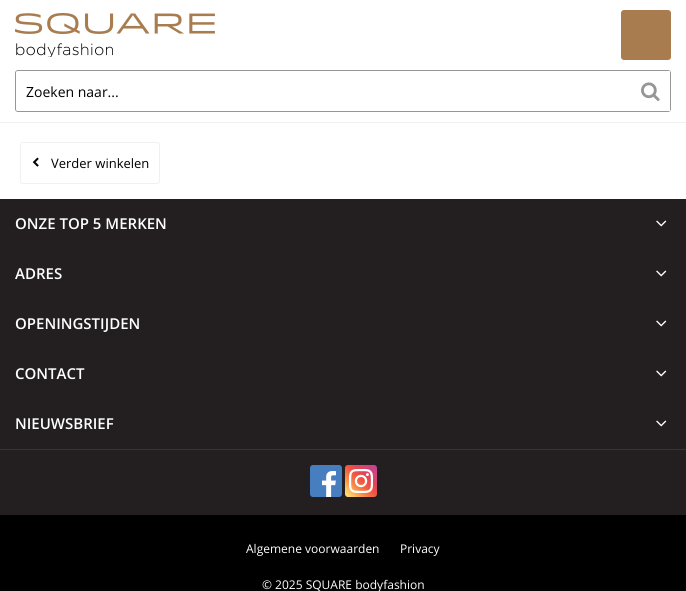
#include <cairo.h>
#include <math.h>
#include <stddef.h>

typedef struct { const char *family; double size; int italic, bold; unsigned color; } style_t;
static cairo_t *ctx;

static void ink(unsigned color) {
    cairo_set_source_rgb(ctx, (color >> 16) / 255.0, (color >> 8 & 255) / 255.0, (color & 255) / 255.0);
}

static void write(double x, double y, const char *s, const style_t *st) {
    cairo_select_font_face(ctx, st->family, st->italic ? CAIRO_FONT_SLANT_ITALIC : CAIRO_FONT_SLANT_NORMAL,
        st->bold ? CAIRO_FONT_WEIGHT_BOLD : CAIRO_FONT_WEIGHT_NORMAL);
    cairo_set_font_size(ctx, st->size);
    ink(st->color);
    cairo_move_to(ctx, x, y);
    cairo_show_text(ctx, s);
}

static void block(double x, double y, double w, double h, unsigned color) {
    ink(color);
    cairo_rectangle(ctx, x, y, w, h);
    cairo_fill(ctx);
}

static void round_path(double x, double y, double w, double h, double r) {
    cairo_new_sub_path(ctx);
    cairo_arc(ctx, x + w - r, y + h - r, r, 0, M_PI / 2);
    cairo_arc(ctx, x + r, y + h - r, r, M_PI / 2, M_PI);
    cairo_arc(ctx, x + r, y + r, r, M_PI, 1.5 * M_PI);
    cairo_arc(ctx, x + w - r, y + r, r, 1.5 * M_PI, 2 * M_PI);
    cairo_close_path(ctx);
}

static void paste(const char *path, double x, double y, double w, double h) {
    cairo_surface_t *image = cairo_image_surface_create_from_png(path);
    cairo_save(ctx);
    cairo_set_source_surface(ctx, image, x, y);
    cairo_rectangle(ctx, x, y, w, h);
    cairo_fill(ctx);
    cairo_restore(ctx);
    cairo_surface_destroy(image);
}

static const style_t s1 = {"Open Sans", 14, 0, 0, 0x000000};
static const style_t s2 = {"Open Sans", 13, 0, 0, 0x000000};
static const style_t s3 = {"Open Sans SemiBold", 15, 0, 0, 0xffffff};
static const style_t s4 = {"Open Sans", 12, 0, 0, 0xffffff};

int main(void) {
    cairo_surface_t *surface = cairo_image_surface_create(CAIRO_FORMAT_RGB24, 686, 591);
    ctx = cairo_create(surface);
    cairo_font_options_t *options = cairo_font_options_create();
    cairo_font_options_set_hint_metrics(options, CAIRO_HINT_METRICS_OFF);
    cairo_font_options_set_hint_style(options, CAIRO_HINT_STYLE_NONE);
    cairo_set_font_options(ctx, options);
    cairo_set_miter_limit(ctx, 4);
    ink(0xffffff);
    cairo_paint(ctx);
    block(0, 122, 686, 1, 0xf0f0f0);
    paste("pic1.png", 15, 13, 200, 44);
    ink(0xa97c50);
    round_path(621, 10, 50, 50, 3);
    cairo_fill(ctx);
    round_path(15.5, 70.5, 655, 41, 2.5);
    ink(0x969696);
    cairo_set_line_width(ctx, 1);
    cairo_stroke(ctx);
    ink(0xffffff);
    round_path(16, 71, 614, 40, 2);
    cairo_fill(ctx);
    write(26, 97, "Zoeken naar...", &s1);
    block(668, 71, 2, 40, 0xffffff);
    paste("pic2.png", 641, 82, 19, 19);
    round_path(20.5, 142.5, 139, 41, 2.5);
    ink(0xf0f0f0);
    cairo_stroke(ctx);
    paste("pic3.png", 32, 157, 7, 10);
    write(51, 168, "Verder winkelen", &s2);
    block(0, 199, 686, 316, 0x231f20);
    write(15, 229, "ONZE TOP 5 MERKEN", &s3);
    paste("pic4.png", 656, 220, 11, 7);
    write(15, 279, "ADRES", &s3);
    paste("pic4.png", 656, 270, 11, 7);
    write(15, 329, "OPENINGSTIJDEN", &s3);
    paste("pic4.png", 656, 320, 11, 7);
    write(15, 379, "CONTACT", &s3);
    paste("pic4.png", 656, 370, 11, 7);
    write(15, 429, "NIEUWSBRIEF", &s3);
    paste("pic4.png", 656, 420, 11, 7);
    block(0, 449, 686, 1, 0x393536);
    paste("pic5.png", 310, 465, 32, 32);
    paste("pic6.png", 345, 465, 32, 32);
    block(0, 515, 686, 76, 0x000000);
    write(246, 553, "Algemene voorwaarden", &s4);
    write(400, 553, "Privacy", &s4);
    write(262, 589, "© 2025 SQUARE bodyfashion", &s4);
    cairo_surface_write_to_png(surface, "screenshot.png");
    cairo_font_options_destroy(options);
    cairo_destroy(ctx);
    cairo_surface_destroy(surface);
    return 0;
}
